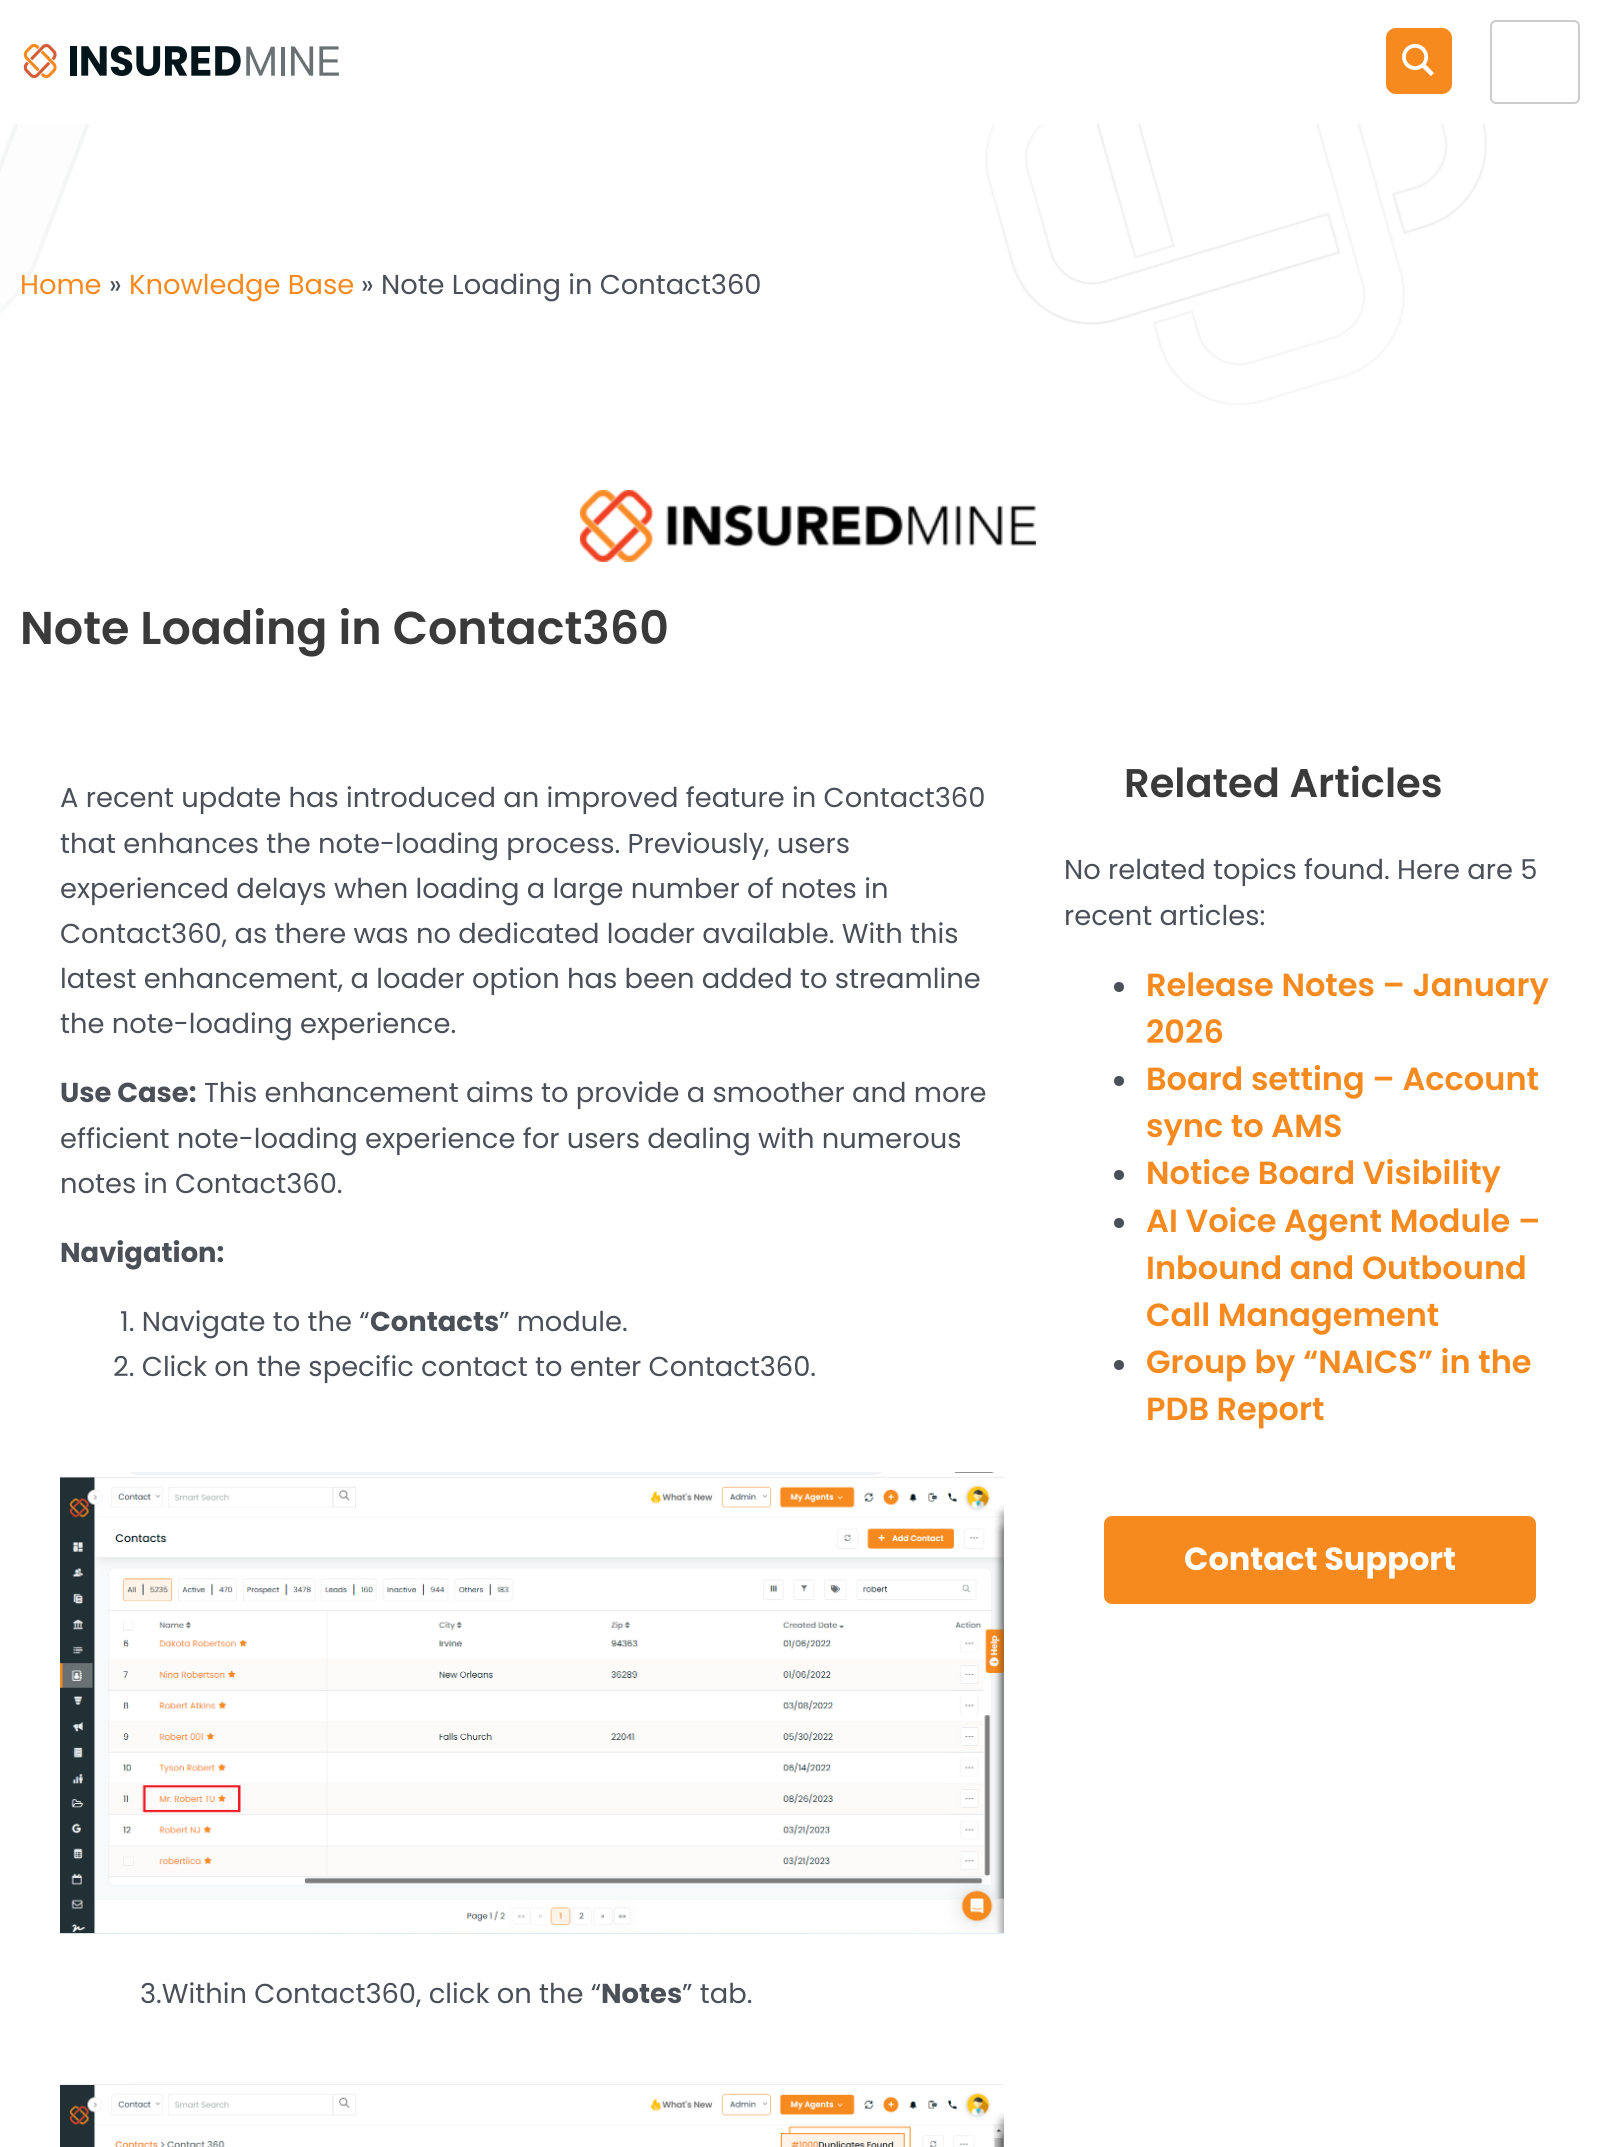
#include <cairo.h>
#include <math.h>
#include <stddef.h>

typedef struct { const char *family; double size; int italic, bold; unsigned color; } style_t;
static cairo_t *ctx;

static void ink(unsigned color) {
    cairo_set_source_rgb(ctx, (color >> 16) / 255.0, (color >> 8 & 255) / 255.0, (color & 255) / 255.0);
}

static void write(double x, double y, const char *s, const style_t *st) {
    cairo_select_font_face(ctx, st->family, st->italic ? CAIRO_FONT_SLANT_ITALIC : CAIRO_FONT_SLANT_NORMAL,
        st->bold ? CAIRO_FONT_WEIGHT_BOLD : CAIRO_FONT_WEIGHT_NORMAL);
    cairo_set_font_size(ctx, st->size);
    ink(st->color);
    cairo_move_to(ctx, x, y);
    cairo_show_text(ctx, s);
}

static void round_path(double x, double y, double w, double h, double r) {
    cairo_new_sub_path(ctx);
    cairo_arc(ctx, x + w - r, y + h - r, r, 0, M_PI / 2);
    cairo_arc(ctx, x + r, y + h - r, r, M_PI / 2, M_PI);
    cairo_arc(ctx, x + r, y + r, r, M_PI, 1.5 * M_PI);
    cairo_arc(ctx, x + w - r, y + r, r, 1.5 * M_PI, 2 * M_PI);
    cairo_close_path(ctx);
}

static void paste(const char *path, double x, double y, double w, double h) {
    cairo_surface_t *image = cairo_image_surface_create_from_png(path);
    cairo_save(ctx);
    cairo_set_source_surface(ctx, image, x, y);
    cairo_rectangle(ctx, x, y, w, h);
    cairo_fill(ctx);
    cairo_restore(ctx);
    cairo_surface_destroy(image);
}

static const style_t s1 = {"Poppins", 27.35, 0, 0, 0xf68a1f};
static const style_t s2 = {"Poppins", 27.35, 0, 0, 0x4b4f58};
static const style_t s3 = {"Poppins SemiBold", 46, 0, 0, 0x3a3a3a};
static const style_t s4 = {"Poppins", 27.35, 0, 1, 0x4b4f58};
static const style_t s5 = {"Poppins SemiBold", 40, 0, 0, 0x3a3a3a};
static const style_t s6 = {"Poppins SemiBold", 32, 0, 0, 0xf68a1f};
static const style_t s7 = {"Poppins", 32, 0, 1, 0xffffff};

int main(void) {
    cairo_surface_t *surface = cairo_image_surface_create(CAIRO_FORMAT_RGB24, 1616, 2147);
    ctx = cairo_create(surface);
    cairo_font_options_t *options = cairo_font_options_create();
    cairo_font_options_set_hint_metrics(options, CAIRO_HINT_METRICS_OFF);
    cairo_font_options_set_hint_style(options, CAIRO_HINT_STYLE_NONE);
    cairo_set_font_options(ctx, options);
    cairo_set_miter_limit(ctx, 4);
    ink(0xffffff);
    cairo_paint(ctx);
    ink(0xf68a1f);
    round_path(1386, 28, 66, 66, 10);
    cairo_fill(ctx);
    paste("pic1.png", 1402, 43, 32, 33);
    paste("pic2.png", 23, 43, 316, 36);
    round_path(1491, 21, 88, 82, 5);
    ink(0xcccccc);
    cairo_stroke(ctx);
    paste("pic3.png", 0, 124, 1487, 281);
    write(20, 294, "Home", &s1);
    write(109, 294, "»", &s2);
    write(129, 294, "Knowledge Base", &s1);
    write(361, 294, "» Note Loading in Contact360", &s2);
    paste("pic4.png", 580, 490, 456, 72);
    write(20, 644, "Note Loading in Contact360", &s3);
    write(60, 807, "A recent update has introduced an improved feature in Contact360", &s2);
    write(60, 853, "that enhances the note-loading process. Previously, users", &s2);
    write(60, 898, "experienced delays when loading a large number of notes in", &s2);
    write(60, 943, "Contact360, as there was no dedicated loader available. With this", &s2);
    write(60, 988, "latest enhancement, a loader option has been added to streamline", &s2);
    write(60, 1033, "the note-loading experience.", &s2);
    write(60, 1102, "Use Case:", &s4);
    write(204, 1102, "This enhancement aims to provide a smoother and more", &s2);
    write(60, 1148, "efficient note-loading experience for users dealing with numerous", &s2);
    write(60, 1193, "notes in Contact360.", &s2);
    write(60, 1262, "Navigation:", &s4);
    write(120, 1331, "1. Navigate to the “", &s2);
    write(370, 1331, "Contacts", &s4);
    write(499, 1331, "” module.", &s2);
    write(113, 1376, "2. Click on the specific contact to enter Contact360.", &s2);
    paste("pic5.png", 60, 1472, 944, 462);
    write(140, 2003, "3.Within Contact360, click on the “", &s2);
    write(601, 2003, "Notes", &s4);
    write(682, 2003, "” tab.", &s2);
    paste("pic6.png", 60, 2082, 944, 65);
    write(1124, 797, "Related Articles", &s5);
    write(1064, 879, "No related topics found. Here are 5", &s2);
    write(1064, 925, "recent articles:", &s2);
    cairo_new_path(ctx);
    cairo_arc(ctx, 1119, 987, 5, 0, 2 * M_PI);
    cairo_fill(ctx);
    write(1146, 996, "Release Notes – January", &s6);
    write(1146, 1043, "2026", &s6);
    ink(0x4b4f58);
    cairo_new_path(ctx);
    cairo_arc(ctx, 1119, 1081, 5, 0, 2 * M_PI);
    cairo_fill(ctx);
    write(1146, 1090, "Board setting – Account", &s6);
    write(1146, 1137, "sync to AMS", &s6);
    ink(0x4b4f58);
    cairo_new_path(ctx);
    cairo_arc(ctx, 1119, 1175, 5, 0, 2 * M_PI);
    cairo_fill(ctx);
    write(1146, 1184, "Notice Board Visibility", &s6);
    ink(0x4b4f58);
    cairo_new_path(ctx);
    cairo_arc(ctx, 1119, 1223, 5, 0, 2 * M_PI);
    cairo_fill(ctx);
    write(1146, 1232, "AI Voice Agent Module –", &s6);
    write(1146, 1279, "Inbound and Outbound", &s6);
    write(1146, 1326, "Call Management", &s6);
    ink(0x4b4f58);
    cairo_new_path(ctx);
    cairo_arc(ctx, 1119, 1365, 5, 0, 2 * M_PI);
    cairo_fill(ctx);
    write(1146, 1373, "Group by “NAICS” in the", &s6);
    write(1146, 1420, "PDB Report", &s6);
    round_path(1104, 1516, 432, 88, 8);
    cairo_fill(ctx);
    write(1184, 1570, "Contact Support", &s7);
    cairo_surface_write_to_png(surface, "screenshot.png");
    cairo_font_options_destroy(options);
    cairo_destroy(ctx);
    cairo_surface_destroy(surface);
    return 0;
}
